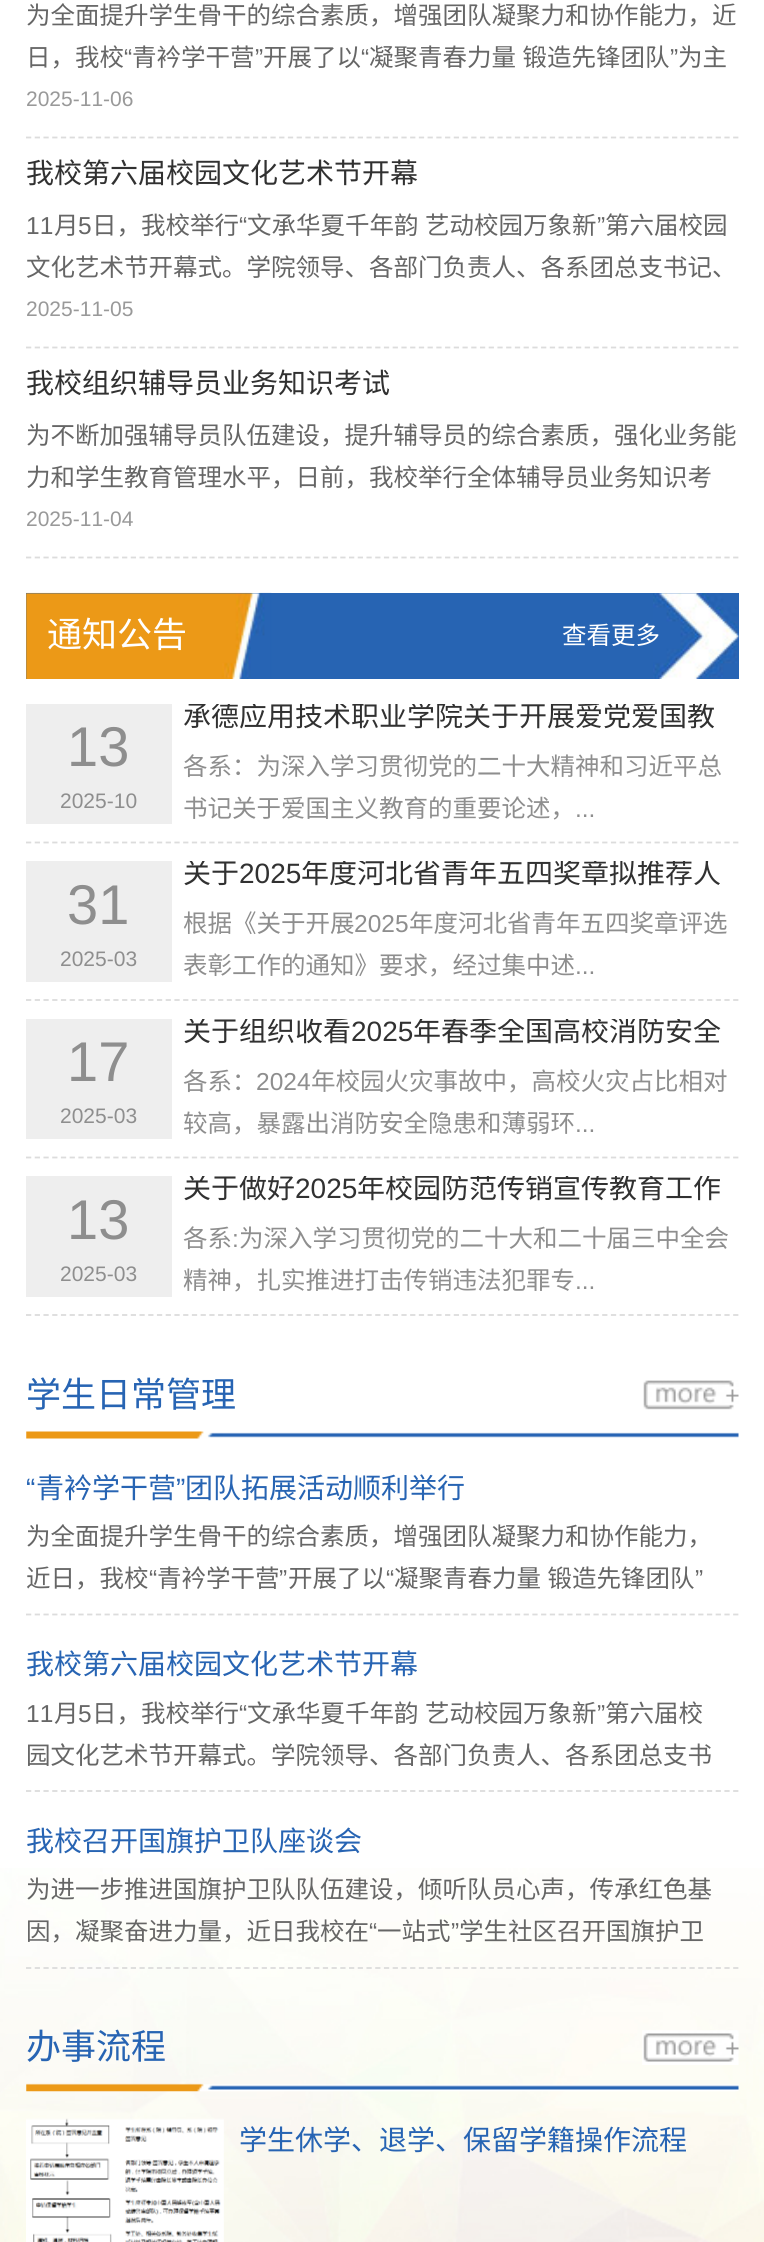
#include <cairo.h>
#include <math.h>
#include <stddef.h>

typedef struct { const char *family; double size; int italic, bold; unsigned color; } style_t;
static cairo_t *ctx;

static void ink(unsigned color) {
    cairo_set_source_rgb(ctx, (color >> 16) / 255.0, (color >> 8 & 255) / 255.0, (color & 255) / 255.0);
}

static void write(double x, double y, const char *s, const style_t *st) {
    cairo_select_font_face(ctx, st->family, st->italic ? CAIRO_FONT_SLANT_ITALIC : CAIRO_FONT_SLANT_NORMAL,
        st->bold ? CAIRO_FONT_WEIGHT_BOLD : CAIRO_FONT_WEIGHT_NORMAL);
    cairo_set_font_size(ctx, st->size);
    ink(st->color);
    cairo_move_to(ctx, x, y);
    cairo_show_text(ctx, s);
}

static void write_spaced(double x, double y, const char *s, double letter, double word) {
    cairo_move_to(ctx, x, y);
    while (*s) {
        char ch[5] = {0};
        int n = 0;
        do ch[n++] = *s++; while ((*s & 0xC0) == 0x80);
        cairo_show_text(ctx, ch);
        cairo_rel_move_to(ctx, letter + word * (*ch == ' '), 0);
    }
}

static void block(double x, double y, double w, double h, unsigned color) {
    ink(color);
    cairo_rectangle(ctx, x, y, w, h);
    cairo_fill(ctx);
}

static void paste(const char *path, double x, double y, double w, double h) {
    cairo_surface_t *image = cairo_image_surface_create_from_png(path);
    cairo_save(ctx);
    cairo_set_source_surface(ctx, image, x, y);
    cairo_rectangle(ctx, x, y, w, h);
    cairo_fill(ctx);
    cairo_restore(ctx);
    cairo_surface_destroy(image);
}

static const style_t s1 = {"Noto Sans CJK SC", 24.5, 0, 0, 0x666666};
static const style_t s2 = {"Liberation Sans", 24.5, 0, 0, 0x666666};
static const style_t s3 = {"Liberation Sans", 21, 0, 0, 0x999999};
static const style_t s4 = {"Noto Sans CJK SC", 28, 0, 0, 0x313131};
static const style_t s5 = {"Noto Sans CJK SC", 35, 0, 0, 0xffffff};
static const style_t s6 = {"Noto Sans CJK SC", 24.5, 0, 0, 0xffffff};
static const style_t s7 = {"Liberation Sans", 56, 0, 0, 0x8e8e8e};
static const style_t s8 = {"Liberation Sans", 21, 0, 0, 0x8e8e8e};
static const style_t s9 = {"Noto Sans CJK SC", 24.5, 0, 0, 0x8e8e8e};
static const style_t s10 = {"Liberation Sans", 24.5, 0, 0, 0x8e8e8e};
static const style_t s11 = {"Liberation Sans", 28, 0, 0, 0x313131};
static const style_t s12 = {"Noto Sans CJK SC", 35, 0, 0, 0x2764b3};
static const style_t s13 = {"Liberation Sans", 28, 0, 0, 0x2764b3};
static const style_t s14 = {"Noto Sans CJK SC", 28, 0, 0, 0x2764b3};

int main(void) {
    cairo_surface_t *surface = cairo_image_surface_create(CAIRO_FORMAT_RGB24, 764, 2242);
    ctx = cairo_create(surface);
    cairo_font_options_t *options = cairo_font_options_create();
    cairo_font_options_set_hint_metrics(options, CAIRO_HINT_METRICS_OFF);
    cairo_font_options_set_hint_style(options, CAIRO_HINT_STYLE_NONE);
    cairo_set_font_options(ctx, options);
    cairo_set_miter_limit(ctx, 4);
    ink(0xffffff);
    cairo_paint(ctx);
    paste("pic1.png", 0, 1868, 764, 374);
    cairo_new_path(ctx);
    cairo_move_to(ctx, 26, 137.5);
    cairo_line_to(ctx, 738.5, 137.5);
    ink(0xdcdcdc);
    cairo_set_line_width(ctx, 1.8);
    cairo_set_dash(ctx, (double[]){5.25, 3.48}, 2, 0);
    cairo_stroke(ctx);
    write(26, 24, "为全面提升学生骨干的综合素质，增强团队凝聚力和协作能力，近", &s1);
    write(26, 66, "日，我校", &s1);
    write(124, 66, "“", &s2);
    write(132, 66, "青衿学干营", &s1);
    write(255, 66, "”", &s2);
    write(263, 66, "开展了以", &s1);
    write(361, 66, "“", &s2);
    cairo_select_font_face(ctx, "Noto Sans CJK SC", CAIRO_FONT_SLANT_NORMAL, CAIRO_FONT_WEIGHT_NORMAL);
    write_spaced(369, 66, "凝聚青春力量 锻造先锋团队", 0, 1);
    write(670, 66, "”", &s2);
    write(678, 66, "为主", &s1);
    write(26, 106, "2025-11-06", &s3);
    cairo_new_path(ctx);
    cairo_move_to(ctx, 26, 347.5);
    cairo_line_to(ctx, 738.5, 347.5);
    ink(0xdcdcdc);
    cairo_stroke(ctx);
    write(26, 183, "我校第六届校园文化艺术节开幕", &s4);
    write(26, 234, "11", &s2);
    write(54, 234, "月", &s1);
    write(78, 234, "5", &s2);
    write(92, 234, "日，我校举行", &s1);
    write(239, 234, "“", &s2);
    cairo_select_font_face(ctx, "Noto Sans CJK SC", CAIRO_FONT_SLANT_NORMAL, CAIRO_FONT_WEIGHT_NORMAL);
    write_spaced(247, 234, "文承华夏千年韵 艺动校园万象新", 0, 1);
    write(597, 234, "”", &s2);
    write(605, 234, "第六届校园", &s1);
    write(26, 276, "文化艺术节开幕式。学院领导、各部门负责人、各系团总支书记、", &s1);
    write(26, 316, "2025-11-05", &s3);
    cairo_new_path(ctx);
    cairo_move_to(ctx, 26, 557.5);
    cairo_line_to(ctx, 738.5, 557.5);
    ink(0xdcdcdc);
    cairo_stroke(ctx);
    write(26, 393, "我校组织辅导员业务知识考试", &s4);
    write(26, 444, "为不断加强辅导员队伍建设，提升辅导员的综合素质，强化业务能", &s1);
    write(26, 486, "力和学生教育管理水平，日前，我校举行全体辅导员业务知识考", &s1);
    write(26, 526, "2025-11-04", &s3);
    block(26, 593, 713, 86, 0x2764b3);
    paste("pic2.png", 26, 592, 246, 87);
    write(47, 647, "通知公告", &s5);
    paste("pic3.png", 653, 593, 86, 86);
    write(562, 644, "查看更多", &s6);
    cairo_new_path(ctx);
    cairo_move_to(ctx, 26, 842.5);
    cairo_line_to(ctx, 738.5, 842.5);
    ink(0xdcdcdc);
    cairo_stroke(ctx);
    block(26, 704, 146, 120, 0xeeeeee);
    write(67, 766, "13", &s7);
    write(60, 808, "2025-10", &s8);
    cairo_save(ctx);
    cairo_rectangle(ctx, 184, 704, 555, 28);
    cairo_clip(ctx);
    write(183, 726, "承德应用技术职业学院关于开展爱党爱国教", &s4);
    cairo_restore(ctx);
    write(183, 775, "各系：为深入学习贯彻党的二十大精神和习近平总", &s9);
    write(183, 817, "书记关于爱国主义教育的重要论述，", &s9);
    write(575, 817, "...", &s10);
    cairo_new_path(ctx);
    cairo_move_to(ctx, 26, 1000);
    cairo_line_to(ctx, 738.5, 1000);
    ink(0xdcdcdc);
    cairo_stroke(ctx);
    block(26, 861, 146, 121, 0xeeeeee);
    write(67, 924, "31", &s7);
    write(60, 966, "2025-03", &s8);
    cairo_save(ctx);
    cairo_rectangle(ctx, 184, 861, 555, 28);
    cairo_clip(ctx);
    write(183, 883, "关于", &s4);
    cairo_restore(ctx);
    write(239, 883, "2025", &s11);
    cairo_save(ctx);
    cairo_rectangle(ctx, 184, 861, 555, 28);
    cairo_clip(ctx);
    write(301, 883, "年度河北省青年五四奖章拟推荐人", &s4);
    cairo_restore(ctx);
    write(183, 932, "根据《关于开展", &s9);
    write(354, 932, "2025", &s10);
    write(409, 932, "年度河北省青年五四奖章评选", &s9);
    write(183, 974, "表彰工作的通知》要求，经过集中述", &s9);
    write(575, 974, "...", &s10);
    cairo_new_path(ctx);
    cairo_move_to(ctx, 26, 1157.5);
    cairo_line_to(ctx, 738.5, 1157.5);
    ink(0xdcdcdc);
    cairo_stroke(ctx);
    block(26, 1019, 146, 120, 0xeeeeee);
    write(67, 1081, "17", &s7);
    write(60, 1123, "2025-03", &s8);
    cairo_save(ctx);
    cairo_rectangle(ctx, 184, 1019, 555, 28);
    cairo_clip(ctx);
    write(183, 1041, "关于组织收看", &s4);
    cairo_restore(ctx);
    write(351, 1041, "2025", &s11);
    cairo_save(ctx);
    cairo_rectangle(ctx, 184, 1019, 555, 28);
    cairo_clip(ctx);
    write(413, 1041, "年春季全国高校消防安全", &s4);
    cairo_restore(ctx);
    write(183, 1090, "各系：", &s9);
    write(256, 1090, "2024", &s10);
    write(311, 1090, "年校园火灾事故中，高校火灾占比相对", &s9);
    write(183, 1132, "较高，暴露出消防安全隐患和薄弱环", &s9);
    write(575, 1132, "...", &s10);
    cairo_new_path(ctx);
    cairo_move_to(ctx, 26, 1315);
    cairo_line_to(ctx, 738.5, 1315);
    ink(0xdcdcdc);
    cairo_stroke(ctx);
    block(26, 1176, 146, 121, 0xeeeeee);
    write(67, 1239, "13", &s7);
    write(60, 1281, "2025-03", &s8);
    cairo_save(ctx);
    cairo_rectangle(ctx, 184, 1176, 555, 28);
    cairo_clip(ctx);
    write(183, 1198, "关于做好", &s4);
    cairo_restore(ctx);
    write(295, 1198, "2025", &s11);
    cairo_save(ctx);
    cairo_rectangle(ctx, 184, 1176, 555, 28);
    cairo_clip(ctx);
    write(357, 1198, "年校园防范传销宣传教育工作", &s4);
    cairo_restore(ctx);
    write(183, 1247, "各系", &s9);
    write(232, 1247, ":", &s10);
    write(239, 1247, "为深入学习贯彻党的二十大和二十届三中全会", &s9);
    write(183, 1289, "精神，扎实推进打击传销违法犯罪专", &s9);
    write(575, 1289, "...", &s10);
    paste("pic4.png", 26, 1431, 713, 8);
    write(26, 1407, "学生日常管理", &s12);
    paste("pic5.png", 643, 1380, 96, 30);
    cairo_new_path(ctx);
    cairo_move_to(ctx, 26, 1614.5);
    cairo_line_to(ctx, 738.5, 1614.5);
    ink(0xdcdcdc);
    cairo_stroke(ctx);
    write(26, 1498, "“", &s13);
    write(36, 1498, "青衿学干营", &s14);
    write(176, 1498, "”", &s13);
    write(185, 1498, "团队拓展活动顺利举行", &s14);
    write(26, 1545, "为全面提升学生骨干的综合素质，增强团队凝聚力和协作能力，", &s1);
    write(26, 1587, "近日，我校", &s1);
    write(149, 1587, "“", &s2);
    write(157, 1587, "青衿学干营", &s1);
    write(279, 1587, "”", &s2);
    write(288, 1587, "开展了以", &s1);
    write(386, 1587, "“", &s2);
    cairo_select_font_face(ctx, "Noto Sans CJK SC", CAIRO_FONT_SLANT_NORMAL, CAIRO_FONT_WEIGHT_NORMAL);
    write_spaced(394, 1587, "凝聚青春力量 锻造先锋团队", 0, 1);
    write(695, 1587, "”", &s2);
    cairo_new_path(ctx);
    cairo_move_to(ctx, 26, 1791);
    cairo_line_to(ctx, 738.5, 1791);
    ink(0xdcdcdc);
    cairo_stroke(ctx);
    write(26, 1674, "我校第六届校园文化艺术节开幕", &s14);
    write(26, 1722, "11", &s2);
    write(54, 1722, "月", &s1);
    write(78, 1722, "5", &s2);
    write(92, 1722, "日，我校举行", &s1);
    write(239, 1722, "“", &s2);
    cairo_select_font_face(ctx, "Noto Sans CJK SC", CAIRO_FONT_SLANT_NORMAL, CAIRO_FONT_WEIGHT_NORMAL);
    write_spaced(247, 1722, "文承华夏千年韵 艺动校园万象新", 0, 1);
    write(597, 1722, "”", &s2);
    write(605, 1722, "第六届校", &s1);
    write(26, 1764, "园文化艺术节开幕式。学院领导、各部门负责人、各系团总支书", &s1);
    cairo_new_path(ctx);
    cairo_move_to(ctx, 26, 1968);
    cairo_line_to(ctx, 738.5, 1968);
    ink(0xdcdcdc);
    cairo_stroke(ctx);
    write(26, 1851, "我校召开国旗护卫队座谈会", &s14);
    write(26, 1898, "为进一步推进国旗护卫队队伍建设，倾听队员心声，传承红色基", &s1);
    write(26, 1940, "因，凝聚奋进力量，近日我校在", &s1);
    write(369, 1940, "“", &s2);
    write(377, 1940, "一站式", &s1);
    write(451, 1940, "”", &s2);
    write(459, 1940, "学生社区召开国旗护卫", &s1);
    paste("pic6.png", 26, 2083, 713, 9);
    write(26, 2059, "办事流程", &s12);
    paste("pic7.png", 642, 2030, 97, 35);
    paste("pic8.png", 26, 2118, 198, 124);
    write(239, 2150, "学生休学、退学、保留学籍操作流程", &s14);
    cairo_surface_write_to_png(surface, "screenshot.png");
    cairo_font_options_destroy(options);
    cairo_destroy(ctx);
    cairo_surface_destroy(surface);
    return 0;
}
